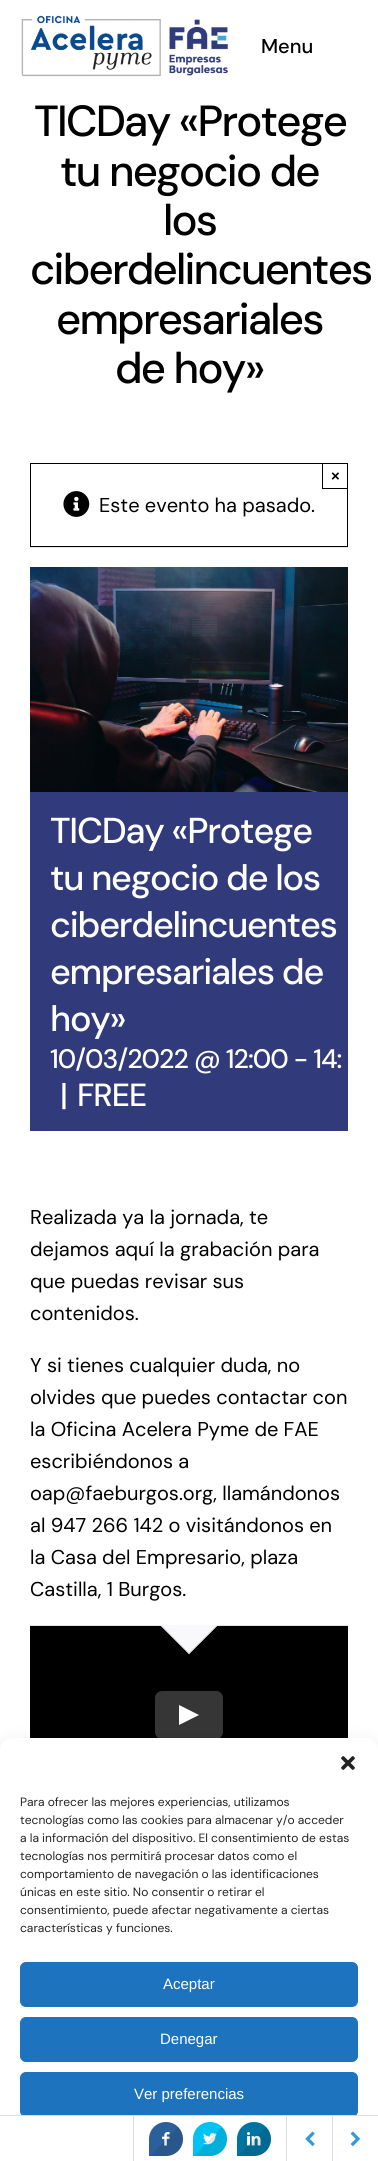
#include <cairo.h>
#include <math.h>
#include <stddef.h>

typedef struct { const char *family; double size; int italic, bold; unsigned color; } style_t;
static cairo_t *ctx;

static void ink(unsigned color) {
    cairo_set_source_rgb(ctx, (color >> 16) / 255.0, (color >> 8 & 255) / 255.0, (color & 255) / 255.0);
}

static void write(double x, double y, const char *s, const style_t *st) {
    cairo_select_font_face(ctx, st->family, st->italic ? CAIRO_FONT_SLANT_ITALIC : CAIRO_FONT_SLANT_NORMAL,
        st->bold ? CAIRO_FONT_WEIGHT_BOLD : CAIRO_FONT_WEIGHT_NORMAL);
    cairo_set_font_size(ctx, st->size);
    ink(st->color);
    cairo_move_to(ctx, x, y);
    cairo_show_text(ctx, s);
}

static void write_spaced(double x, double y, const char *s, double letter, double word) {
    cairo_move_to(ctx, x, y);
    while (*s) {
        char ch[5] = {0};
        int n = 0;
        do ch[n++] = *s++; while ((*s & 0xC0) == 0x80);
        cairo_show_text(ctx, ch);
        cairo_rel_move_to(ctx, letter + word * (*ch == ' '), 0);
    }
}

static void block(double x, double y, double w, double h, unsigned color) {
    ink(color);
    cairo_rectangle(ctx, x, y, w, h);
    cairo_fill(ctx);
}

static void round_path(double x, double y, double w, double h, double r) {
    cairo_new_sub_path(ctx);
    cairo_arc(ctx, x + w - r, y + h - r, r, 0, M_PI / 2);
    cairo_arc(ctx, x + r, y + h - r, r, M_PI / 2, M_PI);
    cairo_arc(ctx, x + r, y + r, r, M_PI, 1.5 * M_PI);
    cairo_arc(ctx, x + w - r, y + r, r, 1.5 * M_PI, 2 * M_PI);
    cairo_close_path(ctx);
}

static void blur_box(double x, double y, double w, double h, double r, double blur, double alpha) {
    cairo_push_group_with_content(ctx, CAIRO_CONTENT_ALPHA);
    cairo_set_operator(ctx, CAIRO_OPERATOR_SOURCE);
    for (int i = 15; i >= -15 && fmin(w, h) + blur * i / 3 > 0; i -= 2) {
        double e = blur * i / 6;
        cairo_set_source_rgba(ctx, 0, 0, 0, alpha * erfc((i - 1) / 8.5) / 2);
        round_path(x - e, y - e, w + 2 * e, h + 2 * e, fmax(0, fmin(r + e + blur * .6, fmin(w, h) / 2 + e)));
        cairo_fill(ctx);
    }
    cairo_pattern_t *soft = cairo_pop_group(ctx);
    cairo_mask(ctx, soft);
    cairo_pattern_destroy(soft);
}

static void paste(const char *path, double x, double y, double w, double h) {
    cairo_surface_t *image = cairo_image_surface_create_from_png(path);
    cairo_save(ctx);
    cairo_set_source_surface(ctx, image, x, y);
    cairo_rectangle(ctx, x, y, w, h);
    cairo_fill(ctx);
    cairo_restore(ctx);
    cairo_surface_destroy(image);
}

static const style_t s1 = {"DM Sans Medium", 20, 0, 0, 0x000000};
static const style_t s2 = {"Liberation Sans", 15, 0, 1, 0x000000};
static const style_t s3 = {"DM Sans", 20, 0, 0, 0x000000};
static const style_t s4 = {"DM Sans", 12, 0, 0, 0x222222};
static const style_t s5 = {"Liberation Sans", 15, 0, 0, 0xffffff};

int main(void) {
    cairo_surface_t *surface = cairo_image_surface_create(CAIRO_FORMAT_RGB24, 378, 2161);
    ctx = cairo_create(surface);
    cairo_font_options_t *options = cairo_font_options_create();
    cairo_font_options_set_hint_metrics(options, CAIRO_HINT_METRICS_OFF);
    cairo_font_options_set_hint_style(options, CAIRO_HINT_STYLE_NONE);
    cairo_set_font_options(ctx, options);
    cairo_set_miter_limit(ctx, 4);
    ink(0xffffff);
    cairo_paint(ctx);
    paste("pic1.png", 21, 15, 207, 62);
    write(261, 53, "Menu", &s1);
    cairo_set_font_size(ctx, 43.5);
    write_spaced(34, 136, "TICDay «Protege", -1.8, 0);
    write_spaced(60, 186, "tu negocio de", -1.8, 0);
    write_spaced(163, 235, "los", -1.8, 0);
    write_spaced(30, 284, "ciberdelincuentes", -1.8, 0);
    write_spaced(56, 334, "empresariales", -1.8, 0);
    write_spaced(115, 383, "de hoy»", -1.8, 0);
    cairo_save(ctx);
    cairo_rectangle(ctx, 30, 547, 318, 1);
    cairo_clip(ctx);
    ink(0x000000);
    blur_box(30, 464, 318, 84, 0, 0.5, 0.1);
    cairo_restore(ctx);
    cairo_rectangle(ctx, 30.5, 463.5, 317, 83);
    cairo_set_line_width(ctx, 1);
    cairo_stroke(ctx);
    block(322, 488, 26, 1, 0x000000);
    block(322, 463, 1, 26, 0x000000);
    write(331, 481, "×", &s2);
    paste("pic2.png", 63, 491, 27, 26);
    write(99, 512, "Este evento ha pasado.", &s3);
    paste("pic3.png", 30, 567, 318, 225);
    block(30, 792, 318, 339, 0x313b7b);
    cairo_select_font_face(ctx, "DM Sans Medium", CAIRO_FONT_SLANT_NORMAL, CAIRO_FONT_WEIGHT_NORMAL);
    cairo_set_font_size(ctx, 36);
    ink(0xffffff);
    write_spaced(50, 843, "TICDay «Protege", -1.25, 0);
    write_spaced(50, 890, "tu negocio de los", -1.25, 0);
    write_spaced(50, 937, "ciberdelincuentes", -1.25, 0);
    write_spaced(50, 984, "empresariales de", -1.25, 0);
    write_spaced(50, 1031, "hoy»", -1.25, 0);
    cairo_set_font_size(ctx, 26.75);
    write_spaced(50, 1068, "10/03/2022 @ 12:00 - 14:", -1, 0);
    cairo_set_font_size(ctx, 32);
    write_spaced(60, 1106, "|", -1, 0);
    write_spaced(77, 1106, "FREE", -1, 0);
    write(30, 1224, "Realizada ya la jornada, te", &s3);
    write(30, 1256, "dejamos aquí la grabación para", &s3);
    write(30, 1288, "que puedas revisar sus", &s3);
    write(30, 1320, "contenidos.", &s3);
    write(30, 1372, "Y si tienes cualquier duda, no", &s3);
    write(30, 1404, "olvides que puedes contactar con", &s3);
    write(30, 1436, "la Oficina Acelera Pyme de FAE", &s3);
    write(30, 1468, "escribiéndonos a", &s3);
    write(30, 1500, "oap@faeburgos.org, llamándonos", &s3);
    write(30, 1532, "al 947 266 142 o visitándonos en", &s3);
    write(30, 1564, "la Casa del Empresario, plaza", &s3);
    write(30, 1596, "Castilla, 1 Burgos.", &s3);
    block(30, 1625, 318, 1, 0xe2e2e2);
    block(30, 1626, 318, 112, 0x000000);
    ink(0xf9f9fb);
    cairo_new_path(ctx);
    cairo_move_to(ctx, 160, 1625);
    cairo_line_to(ctx, 218, 1625);
    cairo_line_to(ctx, 189, 1654);
    cairo_close_path(ctx);
    cairo_fill(ctx);
    ink(0xe2e2e2);
    cairo_new_path(ctx);
    cairo_move_to(ctx, 188.5, 1653);
    cairo_line_to(ctx, 216.5, 1625);
    cairo_line_to(ctx, 217.5, 1625.5);
    cairo_line_to(ctx, 189, 1654);
    cairo_close_path(ctx);
    cairo_fill(ctx);
    cairo_new_path(ctx);
    cairo_move_to(ctx, 160.5, 1625.5);
    cairo_line_to(ctx, 161.5, 1625);
    cairo_line_to(ctx, 189.5, 1653);
    cairo_line_to(ctx, 189, 1654);
    cairo_close_path(ctx);
    cairo_fill(ctx);
    ink(0x363636);
    round_path(155, 1691, 68, 48, 7);
    cairo_fill(ctx);
    ink(0xffffff);
    cairo_new_path(ctx);
    cairo_move_to(ctx, 179, 1725);
    cairo_line_to(ctx, 179, 1705);
    cairo_line_to(ctx, 199, 1715);
    cairo_close_path(ctx);
    cairo_fill(ctx);
    ink(0x000000);
    blur_box(0, 1748, 378, 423, 12, 10, 0.19);
    ink(0xffffff);
    round_path(0, 1738, 378, 423, 12);
    cairo_fill(ctx);
    paste("pic4.png", 341, 1756, 14, 14);
    write(20, 1806, "Para ofrecer las mejores experiencias, utilizamos", &s4);
    write(20, 1824, "tecnologías como las cookies para almacenar y/o acceder", &s4);
    write(20, 1842, "a la información del dispositivo. El consentimiento de estas", &s4);
    write(20, 1860, "tecnologías nos permitirá procesar datos como el", &s4);
    write(20, 1878, "comportamiento de navegación o las identificaciones", &s4);
    write(20, 1896, "únicas en este sitio. No consentir o retirar el", &s4);
    write(20, 1914, "consentimiento, puede afectar negativamente a ciertas", &s4);
    write(20, 1932, "características y funciones.", &s4);
    ink(0x1e73be);
    round_path(20.5, 1962.5, 337, 44, 5.5);
    cairo_fill_preserve(ctx);
    cairo_stroke(ctx);
    write(163, 1989, "Aceptar", &s5);
    ink(0x1e73be);
    round_path(20.5, 2017.5, 337, 44, 5.5);
    cairo_fill_preserve(ctx);
    cairo_stroke(ctx);
    write(160, 2044, "Denegar", &s5);
    ink(0x1e73be);
    round_path(20.5, 2072.5, 337, 44, 5.5);
    cairo_fill_preserve(ctx);
    cairo_stroke(ctx);
    write(134, 2099, "Ver preferencias", &s5);
    block(0, 2116, 378, 45, 0xffffff);
    block(0, 2115, 378, 1, 0xdddddd);
    block(133, 2116, 1, 45, 0xdddddd);
    ink(0x2d609b);
    cairo_new_path(ctx);
    cairo_move_to(ctx, 166, 2122);
    cairo_curve_to(ctx, 175.5, 2122, 183, 2129.5, 183, 2139);
    cairo_curve_to(ctx, 183, 2148.5, 175.5, 2156, 166, 2156);
    cairo_line_to(ctx, 149, 2156);
    cairo_line_to(ctx, 149, 2139);
    cairo_curve_to(ctx, 149, 2129.5, 156.5, 2122, 166, 2122);
    cairo_close_path(ctx);
    cairo_fill(ctx);
    paste("pic5.png", 162, 2132, 8, 14);
    cairo_set_source_rgba(ctx, 0, 0, 0, 0.1);
    cairo_new_path(ctx);
    cairo_move_to(ctx, 150, 2156);
    cairo_line_to(ctx, 178, 2127);
    cairo_curve_to(ctx, 181, 2130, 183, 2134.5, 183, 2139);
    cairo_curve_to(ctx, 183, 2148.5, 175.5, 2156, 166, 2156);
    cairo_close_path(ctx);
    cairo_fill(ctx);
    ink(0x00c3f3);
    cairo_new_path(ctx);
    cairo_move_to(ctx, 210, 2122);
    cairo_curve_to(ctx, 219.5, 2122, 227, 2129.5, 227, 2139);
    cairo_curve_to(ctx, 227, 2148.5, 219.5, 2156, 210, 2156);
    cairo_line_to(ctx, 193, 2156);
    cairo_line_to(ctx, 193, 2139);
    cairo_curve_to(ctx, 193, 2129.5, 200.5, 2122, 210, 2122);
    cairo_close_path(ctx);
    cairo_fill(ctx);
    paste("pic6.png", 203, 2133, 14, 12);
    cairo_set_source_rgba(ctx, 0, 0, 0, 0.1);
    cairo_new_path(ctx);
    cairo_move_to(ctx, 194, 2156);
    cairo_line_to(ctx, 222, 2127);
    cairo_curve_to(ctx, 225, 2130, 227, 2134.5, 227, 2139);
    cairo_curve_to(ctx, 227, 2148.5, 219.5, 2156, 210, 2156);
    cairo_close_path(ctx);
    cairo_fill(ctx);
    ink(0x0074a1);
    cairo_new_path(ctx);
    cairo_move_to(ctx, 254, 2122);
    cairo_curve_to(ctx, 263.5, 2122, 271, 2129.5, 271, 2139);
    cairo_curve_to(ctx, 271, 2148.5, 263.5, 2156, 254, 2156);
    cairo_line_to(ctx, 237, 2156);
    cairo_line_to(ctx, 237, 2139);
    cairo_curve_to(ctx, 237, 2129.5, 244.5, 2122, 254, 2122);
    cairo_close_path(ctx);
    cairo_fill(ctx);
    paste("pic7.png", 247, 2132, 14, 14);
    cairo_set_source_rgba(ctx, 0, 0, 0, 0.1);
    cairo_new_path(ctx);
    cairo_move_to(ctx, 238, 2156);
    cairo_line_to(ctx, 266, 2127);
    cairo_curve_to(ctx, 269, 2130, 271, 2134.5, 271, 2139);
    cairo_curve_to(ctx, 271, 2148.5, 263.5, 2156, 254, 2156);
    cairo_close_path(ctx);
    cairo_fill(ctx);
    block(286, 2116, 1, 45, 0xdddddd);
    paste("pic8.png", 305, 2131, 10, 15);
    block(332, 2116, 1, 45, 0xdddddd);
    paste("pic9.png", 350, 2131, 10, 15);
    cairo_surface_write_to_png(surface, "screenshot.png");
    cairo_font_options_destroy(options);
    cairo_destroy(ctx);
    cairo_surface_destroy(surface);
    return 0;
}
